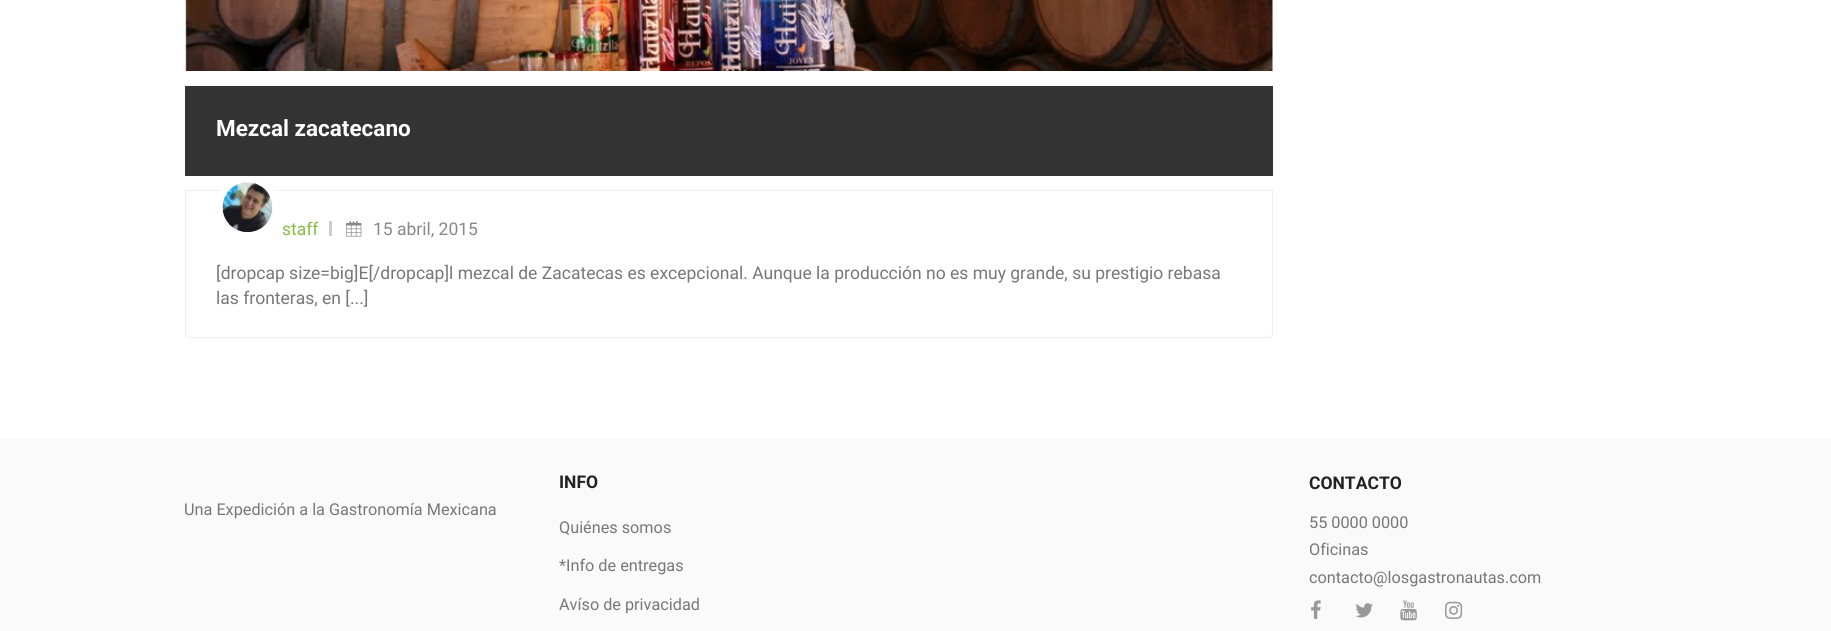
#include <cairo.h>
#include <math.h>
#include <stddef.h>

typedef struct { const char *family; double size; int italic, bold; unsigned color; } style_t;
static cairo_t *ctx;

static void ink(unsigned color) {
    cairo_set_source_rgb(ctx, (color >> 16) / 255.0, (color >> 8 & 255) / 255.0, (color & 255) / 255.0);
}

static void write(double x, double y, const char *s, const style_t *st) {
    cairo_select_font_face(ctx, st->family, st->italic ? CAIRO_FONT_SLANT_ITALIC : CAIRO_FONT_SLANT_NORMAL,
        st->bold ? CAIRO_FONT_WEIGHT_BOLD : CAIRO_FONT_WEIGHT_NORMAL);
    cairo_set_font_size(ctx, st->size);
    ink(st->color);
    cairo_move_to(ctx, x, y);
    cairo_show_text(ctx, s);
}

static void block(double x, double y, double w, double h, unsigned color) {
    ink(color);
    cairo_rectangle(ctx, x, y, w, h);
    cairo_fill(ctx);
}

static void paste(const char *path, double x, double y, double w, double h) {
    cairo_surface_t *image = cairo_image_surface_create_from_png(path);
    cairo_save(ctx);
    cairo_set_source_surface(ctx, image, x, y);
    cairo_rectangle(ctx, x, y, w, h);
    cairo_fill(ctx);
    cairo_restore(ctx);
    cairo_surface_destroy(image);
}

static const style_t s1 = {"Roboto", 22.5, 0, 1, 0xffffff};
static const style_t s2 = {"Roboto", 17.5, 0, 0, 0x86bc42};
static const style_t s3 = {"Roboto", 17.5, 0, 0, 0x888888};
static const style_t s4 = {"Roboto", 17.5, 0, 0, 0x777777};
static const style_t s5 = {"Roboto", 16.25, 0, 0, 0x777777};
static const style_t s6 = {"Roboto", 17.5, 0, 1, 0x222222};

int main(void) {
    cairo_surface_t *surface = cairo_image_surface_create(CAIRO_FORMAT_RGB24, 1831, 631);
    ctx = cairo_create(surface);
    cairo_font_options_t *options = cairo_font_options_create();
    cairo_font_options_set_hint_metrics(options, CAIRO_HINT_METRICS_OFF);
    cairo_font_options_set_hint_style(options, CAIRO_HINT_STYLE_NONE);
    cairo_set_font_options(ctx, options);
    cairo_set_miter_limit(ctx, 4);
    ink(0xffffff);
    cairo_paint(ctx);
    paste("pic1.png", 185, 0, 1088, 71);
    block(185, 86, 1088, 90, 0x333333);
    write(216, 136, "Mezcal zacatecano", &s1);
    cairo_new_path(ctx);
    cairo_move_to(ctx, 185.5, 190.5);
    cairo_line_to(ctx, 1272.5, 190.5);
    cairo_line_to(ctx, 1272.5, 334);
    cairo_curve_to(ctx, 1272.5, 336, 1271, 337.5, 1269, 337.5);
    cairo_line_to(ctx, 189, 337.5);
    cairo_curve_to(ctx, 187, 337.5, 185.5, 336, 185.5, 334);
    cairo_close_path(ctx);
    ink(0xeeeeee);
    cairo_set_line_width(ctx, 1);
    cairo_stroke(ctx);
    cairo_arc(ctx, 247.5, 207.5, 28.5, 0, 2 * M_PI);
    ink(0xffffff);
    cairo_set_line_width(ctx, 6);
    cairo_stroke(ctx);
    paste("pic2.png", 222, 182, 51, 51);
    write(282, 235, "staff", &s2);
    block(329, 221, 3, 15, 0xcccccc);
    paste("pic3.png", 346, 221, 16, 16);
    write(373, 235, "15 abril, 2015", &s3);
    write(216, 279, "[dropcap size=big]E[/dropcap]l mezcal de Zacatecas es excepcional. Aunque la producción no es muy grande, su prestigio rebasa", &s4);
    write(216, 304, "las fronteras, en [...]", &s4);
    block(0, 438, 1831, 193, 0xfafafa);
    write(184, 515, "Una Expedición a la Gastronomía Mexicana", &s5);
    write(559, 488, "INFO", &s6);
    write(559, 533, "Quiénes somos", &s5);
    write(559, 571, "*Info de entregas", &s5);
    write(559, 610, "Avíso de privacidad", &s5);
    write(1309, 489, "CONTACTO", &s6);
    write(1309, 528, "55 0000 0000", &s5);
    write(1309, 555, "Oficinas", &s5);
    write(1309, 583, "contacto@losgastronautas.com", &s5);
    paste("pic4.png", 1311, 600, 10, 19);
    paste("pic5.png", 1355, 603, 18, 15);
    paste("pic6.png", 1400, 600, 17, 21);
    paste("pic7.png", 1445, 601, 18, 18);
    cairo_surface_write_to_png(surface, "screenshot.png");
    cairo_font_options_destroy(options);
    cairo_destroy(ctx);
    cairo_surface_destroy(surface);
    return 0;
}
